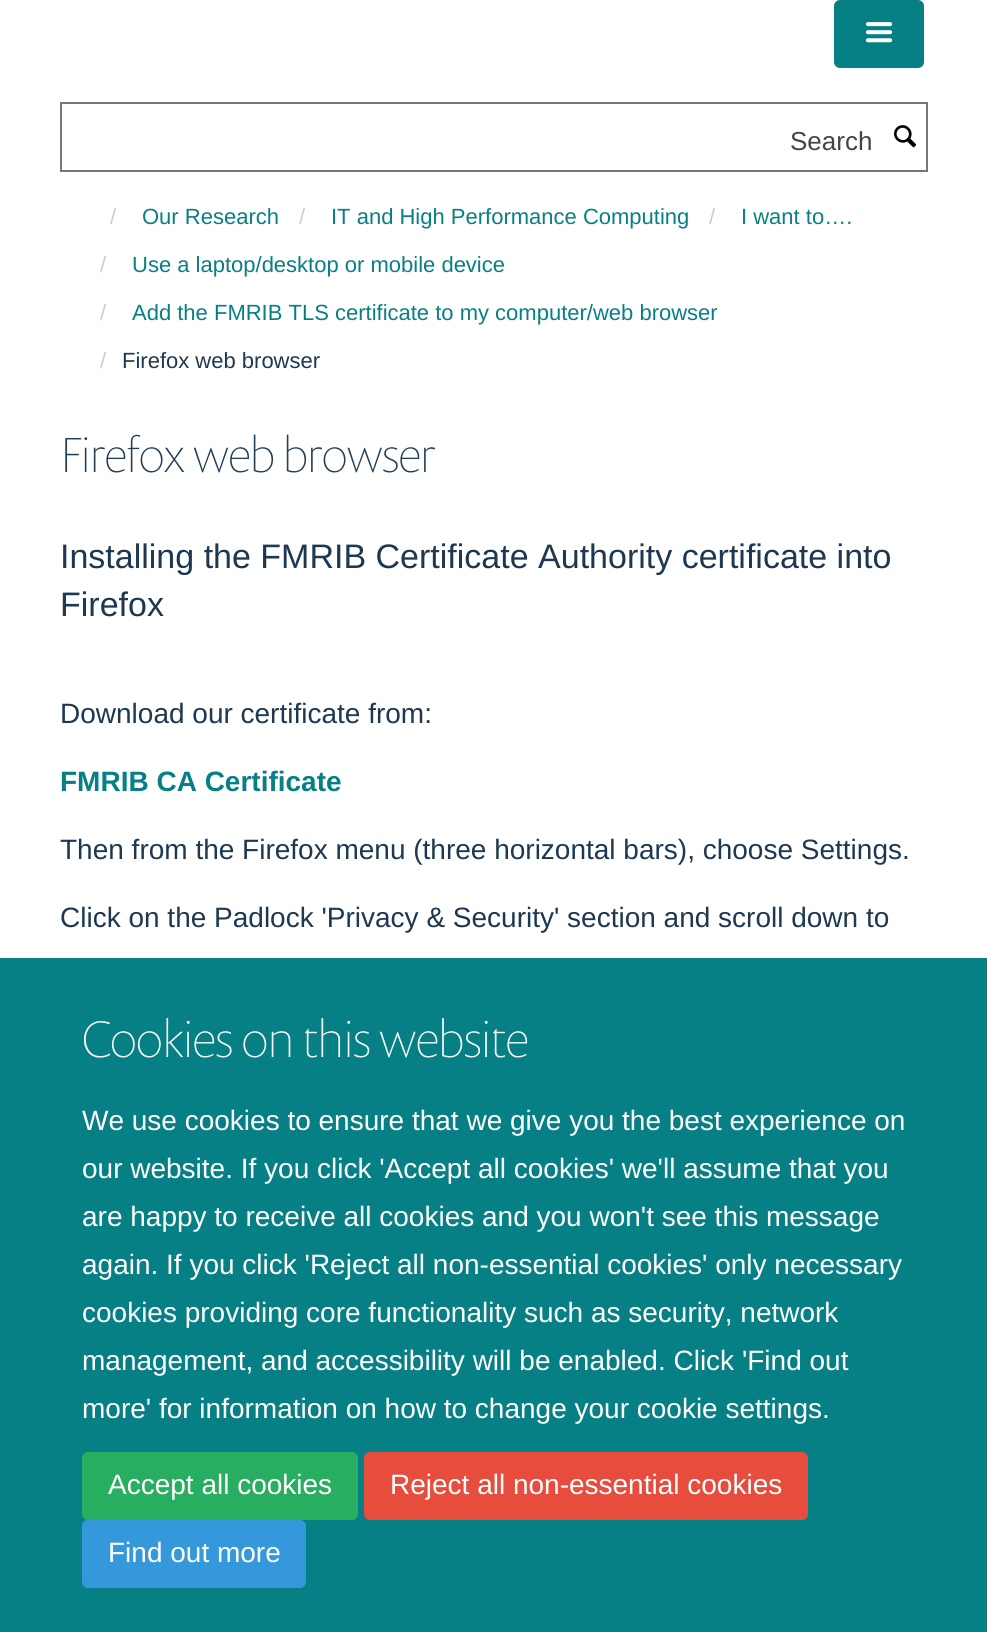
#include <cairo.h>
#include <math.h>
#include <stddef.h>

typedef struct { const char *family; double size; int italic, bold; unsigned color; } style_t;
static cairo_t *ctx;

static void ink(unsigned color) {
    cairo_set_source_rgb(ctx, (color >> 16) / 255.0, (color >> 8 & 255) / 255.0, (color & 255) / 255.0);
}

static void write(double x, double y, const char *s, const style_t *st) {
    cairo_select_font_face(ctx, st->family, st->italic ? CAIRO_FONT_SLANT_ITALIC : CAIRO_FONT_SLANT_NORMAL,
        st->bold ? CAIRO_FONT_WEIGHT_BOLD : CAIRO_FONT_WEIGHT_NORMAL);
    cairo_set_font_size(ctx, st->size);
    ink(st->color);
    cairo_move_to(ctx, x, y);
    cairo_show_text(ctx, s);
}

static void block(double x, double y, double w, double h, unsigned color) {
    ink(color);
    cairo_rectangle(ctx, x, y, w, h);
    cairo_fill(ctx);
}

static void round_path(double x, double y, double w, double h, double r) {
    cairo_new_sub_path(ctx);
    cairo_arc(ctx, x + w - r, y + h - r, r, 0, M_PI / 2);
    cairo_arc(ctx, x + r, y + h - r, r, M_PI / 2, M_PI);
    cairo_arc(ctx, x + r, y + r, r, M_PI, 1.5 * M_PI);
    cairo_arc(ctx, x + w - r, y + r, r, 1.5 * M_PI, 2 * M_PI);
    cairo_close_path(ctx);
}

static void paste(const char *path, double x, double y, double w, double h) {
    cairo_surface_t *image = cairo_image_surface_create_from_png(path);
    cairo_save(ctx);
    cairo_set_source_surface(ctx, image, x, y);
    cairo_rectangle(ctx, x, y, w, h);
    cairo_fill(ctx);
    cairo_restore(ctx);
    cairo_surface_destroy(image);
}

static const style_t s1 = {"Liberation Sans", 26, 0, 0, 0x444444};
static const style_t s2 = {"Liberation Sans", 22, 0, 0, 0xcccccc};
static const style_t s3 = {"Liberation Sans", 22, 0, 0, 0x078085};
static const style_t s4 = {"Liberation Sans", 22, 0, 0, 0x1d3850};
static const style_t s5 = {"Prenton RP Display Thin", 50, 0, 0, 0x203e58};
static const style_t s6 = {"Liberation Sans", 34, 0, 0, 0x1d3850};
static const style_t s7 = {"Liberation Sans", 28, 0, 0, 0x1d3850};
static const style_t s8 = {"Liberation Sans", 28, 0, 1, 0x078085};
static const style_t s9 = {"Prenton RP Display Thin", 52, 0, 0, 0xffffff};
static const style_t s10 = {"Liberation Sans", 28, 0, 0, 0xffffff};

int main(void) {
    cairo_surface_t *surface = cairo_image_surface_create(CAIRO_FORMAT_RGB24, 987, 1632);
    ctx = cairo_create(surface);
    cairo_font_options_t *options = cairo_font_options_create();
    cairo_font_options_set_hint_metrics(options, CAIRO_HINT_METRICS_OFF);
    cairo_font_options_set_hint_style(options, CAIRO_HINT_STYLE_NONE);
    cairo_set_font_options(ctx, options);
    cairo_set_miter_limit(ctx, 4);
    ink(0xffffff);
    cairo_paint(ctx);
    ink(0x078085);
    round_path(835, 1, 88, 66, 5);
    cairo_fill_preserve(ctx);
    cairo_stroke(ctx);
    paste("pic1.png", 865, 22, 28, 21);
    cairo_rectangle(ctx, 61, 103, 866, 68);
    ink(0x777777);
    cairo_stroke(ctx);
    write(790, 150, "Search", &s1);
    paste("pic2.png", 894, 125, 23, 23);
    write(110, 224, "/", &s2);
    write(142, 224, "Our Research", &s3);
    write(299, 224, "/", &s2);
    write(331, 224, "IT and High Performance Computing", &s3);
    write(709, 224, "/", &s2);
    write(741, 224, "I want to….", &s3);
    write(100, 272, "/", &s2);
    write(132, 272, "Use a laptop/desktop or mobile device", &s3);
    write(100, 320, "/", &s2);
    write(132, 320, "Add the FMRIB TLS certificate to my computer/web browser", &s3);
    write(100, 368, "/", &s2);
    write(122, 368, "Firefox web browser", &s4);
    write(60, 472, "Firefox web browser", &s5);
    write(60, 568, "Installing the FMRIB Certificate Authority certificate into", &s6);
    write(60, 616, "Firefox", &s6);
    write(60, 723, "Download our certificate from:", &s7);
    write(60, 791, "FMRIB CA Certificate", &s8);
    write(60, 859, "Then from the Firefox menu (three horizontal bars), choose Settings.", &s7);
    write(60, 927, "Click on the Padlock 'Privacy & Security' section and scroll down to", &s7);
    block(0, 958, 987, 674, 0x078085);
    write(82, 1057, "Cookies on this website", &s9);
    write(82, 1130, "We use cookies to ensure that we give you the best experience on", &s10);
    write(82, 1178, "our website. If you click 'Accept all cookies' we'll assume that you", &s10);
    write(82, 1226, "are happy to receive all cookies and you won't see this message", &s10);
    write(82, 1274, "again. If you click 'Reject all non-essential cookies' only necessary", &s10);
    write(82, 1322, "cookies providing core functionality such as security, network", &s10);
    write(82, 1370, "management, and accessibility will be enabled. Click 'Find out", &s10);
    write(82, 1418, "more' for information on how to change your cookie settings.", &s10);
    ink(0x27ae60);
    round_path(83, 1453, 274, 66, 5);
    cairo_fill_preserve(ctx);
    cairo_stroke(ctx);
    write(108, 1494, "Accept all cookies", &s10);
    ink(0xe74c3c);
    round_path(365, 1453, 442, 66, 5);
    cairo_fill_preserve(ctx);
    cairo_stroke(ctx);
    write(390, 1494, "Reject all non-essential cookies", &s10);
    ink(0x3498db);
    round_path(83, 1521, 222, 66, 5);
    cairo_fill_preserve(ctx);
    cairo_stroke(ctx);
    write(108, 1562, "Find out more", &s10);
    cairo_surface_write_to_png(surface, "screenshot.png");
    cairo_font_options_destroy(options);
    cairo_destroy(ctx);
    cairo_surface_destroy(surface);
    return 0;
}
